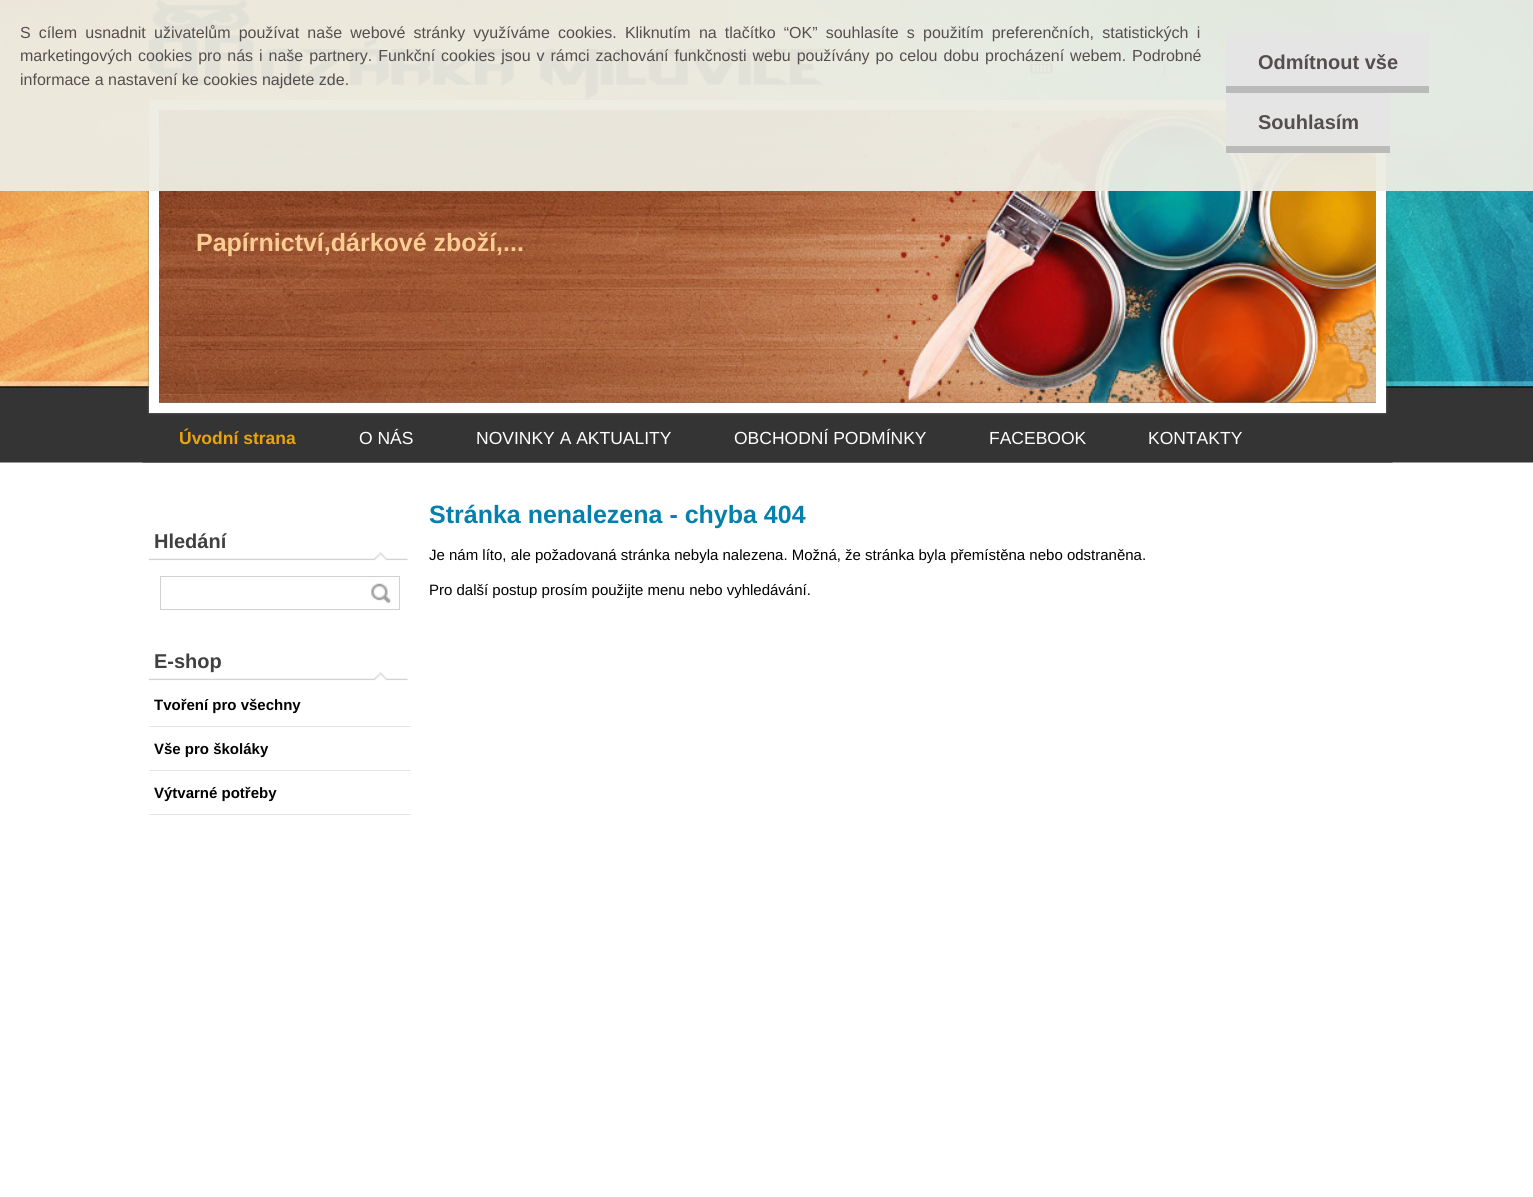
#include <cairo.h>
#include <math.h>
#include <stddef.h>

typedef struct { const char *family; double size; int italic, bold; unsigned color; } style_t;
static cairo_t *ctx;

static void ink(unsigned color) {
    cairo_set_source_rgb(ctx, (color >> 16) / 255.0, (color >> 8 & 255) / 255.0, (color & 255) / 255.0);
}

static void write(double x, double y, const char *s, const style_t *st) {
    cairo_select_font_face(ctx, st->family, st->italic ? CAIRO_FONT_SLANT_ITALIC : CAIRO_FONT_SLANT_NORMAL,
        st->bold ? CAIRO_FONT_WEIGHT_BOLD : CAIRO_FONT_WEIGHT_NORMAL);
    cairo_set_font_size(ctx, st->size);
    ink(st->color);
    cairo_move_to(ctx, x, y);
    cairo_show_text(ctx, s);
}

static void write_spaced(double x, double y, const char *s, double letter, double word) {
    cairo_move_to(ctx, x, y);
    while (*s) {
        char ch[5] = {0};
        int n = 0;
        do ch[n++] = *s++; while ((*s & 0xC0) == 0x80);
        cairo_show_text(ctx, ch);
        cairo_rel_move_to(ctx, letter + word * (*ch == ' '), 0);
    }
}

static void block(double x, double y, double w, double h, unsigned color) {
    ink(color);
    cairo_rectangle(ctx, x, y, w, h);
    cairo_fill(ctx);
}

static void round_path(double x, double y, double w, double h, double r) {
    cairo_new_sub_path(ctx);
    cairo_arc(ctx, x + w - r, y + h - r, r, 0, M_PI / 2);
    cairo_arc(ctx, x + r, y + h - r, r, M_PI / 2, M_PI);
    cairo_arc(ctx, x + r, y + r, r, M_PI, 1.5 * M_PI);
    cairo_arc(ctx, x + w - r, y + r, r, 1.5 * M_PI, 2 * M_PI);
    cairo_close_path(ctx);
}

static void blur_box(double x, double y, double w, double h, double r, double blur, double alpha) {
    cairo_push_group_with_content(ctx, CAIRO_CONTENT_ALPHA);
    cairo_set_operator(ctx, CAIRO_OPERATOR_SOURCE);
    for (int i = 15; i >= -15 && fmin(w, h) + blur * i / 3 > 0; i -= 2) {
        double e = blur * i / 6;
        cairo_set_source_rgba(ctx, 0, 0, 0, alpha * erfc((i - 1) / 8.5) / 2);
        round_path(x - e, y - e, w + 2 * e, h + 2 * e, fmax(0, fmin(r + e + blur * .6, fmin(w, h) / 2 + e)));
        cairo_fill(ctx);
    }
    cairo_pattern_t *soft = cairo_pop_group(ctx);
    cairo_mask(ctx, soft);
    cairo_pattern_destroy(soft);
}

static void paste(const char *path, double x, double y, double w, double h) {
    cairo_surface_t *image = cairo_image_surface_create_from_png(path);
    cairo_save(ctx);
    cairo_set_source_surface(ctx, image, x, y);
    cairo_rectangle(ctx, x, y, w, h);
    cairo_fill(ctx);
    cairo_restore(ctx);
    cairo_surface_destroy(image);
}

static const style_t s1 = {"Liberation Sans", 16, 0, 0, 0x554e4e};
static const style_t s2 = {"Liberation Sans", 20, 0, 1, 0x554e4e};
static const style_t s3 = {"Liberation Sans", 25, 0, 1, 0xfbcd92};
static const style_t s4 = {"Liberation Sans", 17.5, 0, 1, 0xeaa30d};
static const style_t s5 = {"Liberation Sans", 17.5, 0, 0, 0xffffff};
static const style_t s6 = {"Liberation Sans", 20, 0, 1, 0x404040};
static const style_t s7 = {"Liberation Sans", 15, 0, 1, 0x000000};
static const style_t s8 = {"Liberation Sans", 25, 0, 1, 0x0380ad};
static const style_t s9 = {"Liberation Sans", 15, 0, 0, 0x000000};

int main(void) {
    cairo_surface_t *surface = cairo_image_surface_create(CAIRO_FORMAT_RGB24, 1533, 1197);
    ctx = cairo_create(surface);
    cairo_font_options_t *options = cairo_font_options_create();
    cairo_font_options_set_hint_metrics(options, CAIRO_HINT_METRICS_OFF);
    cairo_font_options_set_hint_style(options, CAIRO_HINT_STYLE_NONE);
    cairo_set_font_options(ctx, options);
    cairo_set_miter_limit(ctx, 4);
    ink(0xffffff);
    cairo_paint(ctx);
    paste("pic1.png", 0, 0, 1533, 463);
    paste("pic2.png", 142, 0, 1251, 463);
    paste("pic3.png", 1028, 49, 26, 25);
    block(1164, 58, 1, 17, 0x343434);
    block(1256, 58, 1, 17, 0x343434);
    ink(0x787471);
    blur_box(149, 100, 1237, 313, 0, 1, 1);
    paste("pic4.png", 159, 110, 1217, 293);
    cairo_rectangle(ctx, 154, 105, 1227, 303);
    ink(0xffffff);
    cairo_set_line_width(ctx, 10);
    cairo_stroke(ctx);
    paste("pic5.png", 148, 0, 676, 100);
    cairo_set_source_rgba(ctx, 0.929, 0.929, 0.89, 0.95);
    cairo_rectangle(ctx, 0, 0, 1533, 191);
    cairo_fill(ctx);
    cairo_select_font_face(ctx, "Liberation Sans", CAIRO_FONT_SLANT_NORMAL, CAIRO_FONT_WEIGHT_NORMAL);
    cairo_set_font_size(ctx, 16);
    ink(0x554e4e);
    write_spaced(20, 38, "S cílem usnadnit uživatelům používat naše webové stránky využíváme cookies. Kliknutím na tlačítko “OK” souhlasíte s použitím preferenčních, statistických i", 0, 3.75);
    write_spaced(20, 61, "marketingových cookies pro nás i naše partnery. Funkční cookies jsou v rámci zachování funkčnosti webu používány po celou dobu procházení webem. Podrobné", 0, 1.5);
    write(20, 85, "informace a nastavení ke cookies najdete zde.", &s1);
    cairo_set_source_rgba(ctx, 0.898, 0.898, 0.898, 0.95);
    cairo_rectangle(ctx, 1226, 33, 203, 53);
    cairo_fill(ctx);
    block(1226, 86, 203, 7, 0xb9bab9);
    write(1258, 69, "Odmítnout vše", &s2);
    cairo_set_source_rgba(ctx, 0.898, 0.898, 0.898, 0.95);
    cairo_rectangle(ctx, 1226, 93, 164, 53);
    cairo_fill(ctx);
    block(1226, 146, 164, 7, 0xbabab9);
    write(1258, 129, "Souhlasím", &s2);
    write(196, 251, "Papírnictví,dárkové zboží,...", &s3);
    write(179, 444, "Úvodní strana", &s4);
    write(359, 444, "O NÁS", &s5);
    write(476, 444, "NOVINKY A AKTUALITY", &s5);
    write(734, 444, "OBCHODNÍ PODMÍNKY", &s5);
    write(989, 444, "FACEBOOK", &s5);
    write(1148, 444, "KONTAKTY", &s5);
    paste("pic6.png", 148, 552, 260, 9);
    write(154, 548, "Hledání", &s6);
    cairo_rectangle(ctx, 160.5, 576.5, 239, 33);
    ink(0xd0d0d0);
    cairo_set_line_width(ctx, 1);
    cairo_stroke(ctx);
    paste("pic7.png", 371, 583, 21, 21);
    paste("pic6.png", 148, 672, 260, 9);
    write(154, 668, "E-shop", &s6);
    block(149, 726, 262, 1, 0xe5e5e6);
    write(154, 710, "Tvoření pro všechny", &s7);
    block(149, 770, 262, 1, 0xe5e5e6);
    write(154, 754, "Vše pro školáky", &s7);
    block(149, 814, 262, 1, 0xe5e5e6);
    write(154, 798, "Výtvarné potřeby", &s7);
    write(429, 523, "Stránka nenalezena - chyba 404", &s8);
    write(429, 560, "Je nám líto, ale požadovaná stránka nebyla nalezena. Možná, že stránka byla přemístěna nebo odstraněna.", &s9);
    write(429, 595, "Pro další postup prosím použijte menu nebo vyhledávání.", &s9);
    cairo_surface_write_to_png(surface, "screenshot.png");
    cairo_font_options_destroy(options);
    cairo_destroy(ctx);
    cairo_surface_destroy(surface);
    return 0;
}
